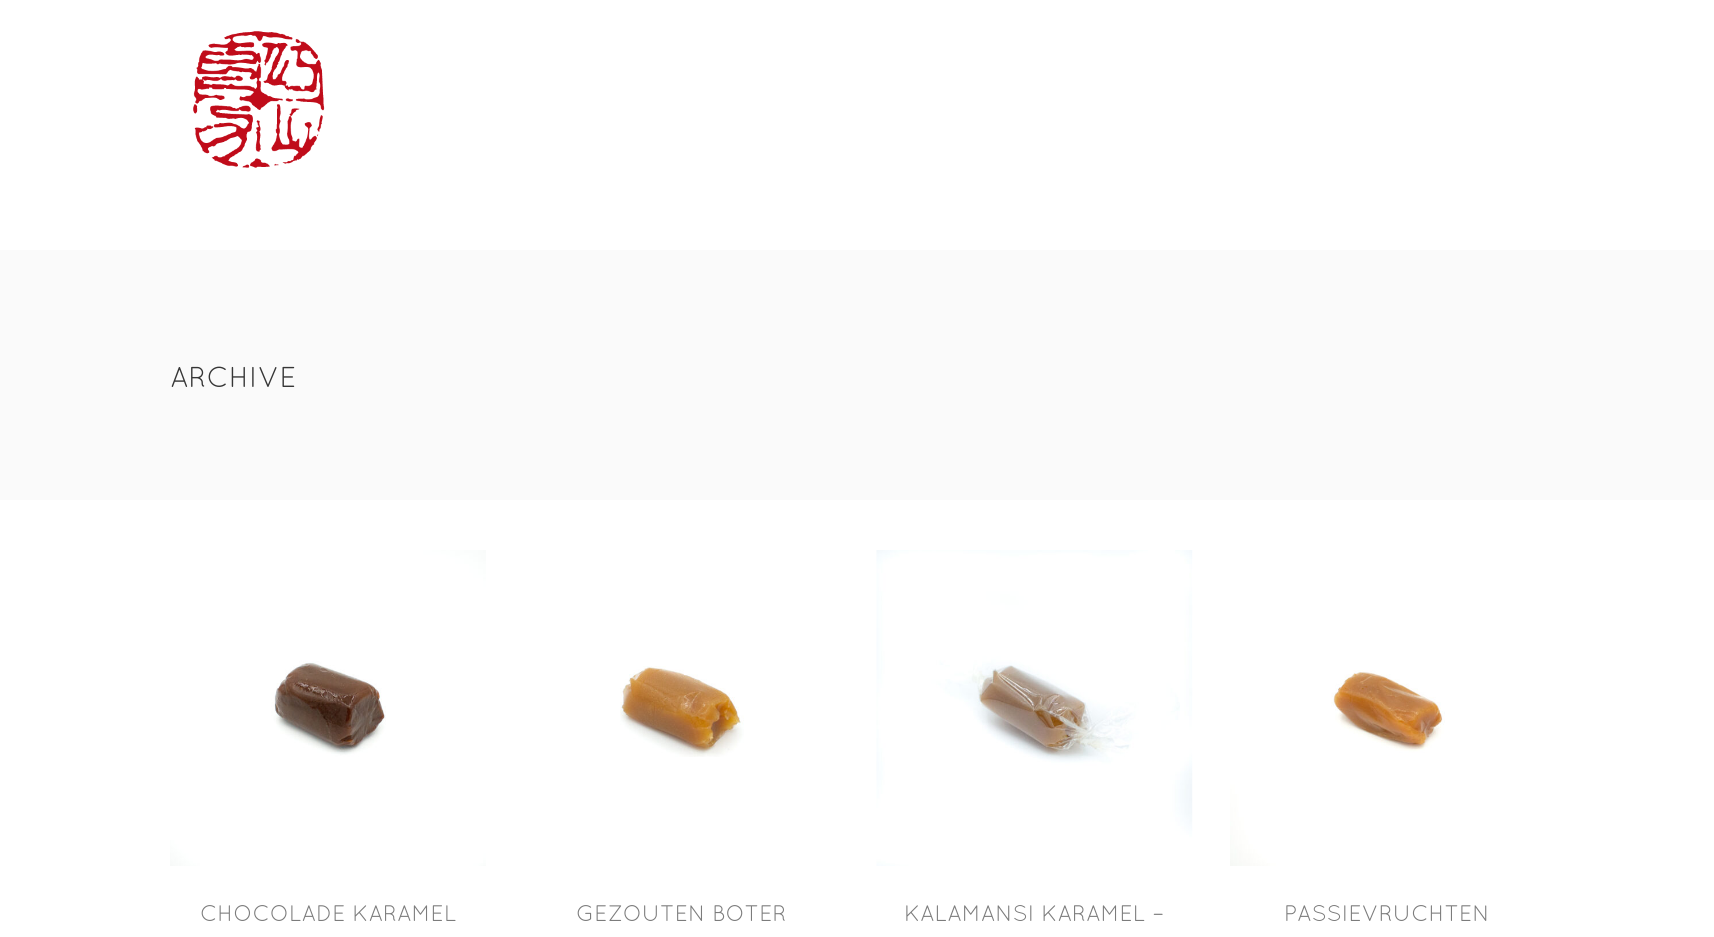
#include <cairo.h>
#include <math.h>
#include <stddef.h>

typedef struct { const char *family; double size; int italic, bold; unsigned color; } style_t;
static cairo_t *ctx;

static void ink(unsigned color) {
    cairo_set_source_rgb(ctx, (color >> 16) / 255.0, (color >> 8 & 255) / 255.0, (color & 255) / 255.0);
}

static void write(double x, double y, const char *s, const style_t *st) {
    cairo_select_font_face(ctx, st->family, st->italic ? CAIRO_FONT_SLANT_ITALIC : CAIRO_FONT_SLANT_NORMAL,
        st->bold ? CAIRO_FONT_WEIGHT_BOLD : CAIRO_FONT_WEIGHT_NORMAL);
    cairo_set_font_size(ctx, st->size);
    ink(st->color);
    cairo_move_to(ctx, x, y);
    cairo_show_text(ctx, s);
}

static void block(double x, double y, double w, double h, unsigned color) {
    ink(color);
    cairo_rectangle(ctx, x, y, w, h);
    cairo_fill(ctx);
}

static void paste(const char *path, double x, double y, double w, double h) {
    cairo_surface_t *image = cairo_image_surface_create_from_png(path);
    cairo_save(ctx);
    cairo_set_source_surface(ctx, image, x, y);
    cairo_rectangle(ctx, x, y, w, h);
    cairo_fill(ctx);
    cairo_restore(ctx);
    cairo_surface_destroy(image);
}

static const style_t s1 = {"Quicksand", 28.75, 0, 0, 0x363636};
static const style_t s2 = {"Quicksand", 22.5, 0, 0, 0x7c7c7c};

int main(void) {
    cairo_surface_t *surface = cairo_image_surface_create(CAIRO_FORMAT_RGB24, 1714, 937);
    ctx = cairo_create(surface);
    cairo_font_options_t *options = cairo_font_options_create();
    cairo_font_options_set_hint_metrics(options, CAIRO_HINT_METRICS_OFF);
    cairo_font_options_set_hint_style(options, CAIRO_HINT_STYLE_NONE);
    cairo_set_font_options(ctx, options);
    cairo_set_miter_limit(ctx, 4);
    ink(0xffffff);
    cairo_paint(ctx);
    paste("pic1.png", 193, 31, 132, 137);
    block(0, 250, 1714, 250, 0xfafafa);
    write(170, 387, "ARCHIVE", &s1);
    paste("pic2.png", 170, 550, 316, 316);
    write(200, 921, "CHOCOLADE KARAMEL", &s2);
    paste("pic3.png", 620, 666, 124, 91);
    write(576, 921, "GEZOUTEN BOTER", &s2);
    paste("pic4.png", 876, 550, 317, 316);
    write(904, 921, "KALAMANSI KARAMEL –", &s2);
    paste("pic5.png", 1230, 670, 215, 196);
    write(1284, 921, "PASSIEVRUCHTEN", &s2);
    cairo_surface_write_to_png(surface, "screenshot.png");
    cairo_font_options_destroy(options);
    cairo_destroy(ctx);
    cairo_surface_destroy(surface);
    return 0;
}
